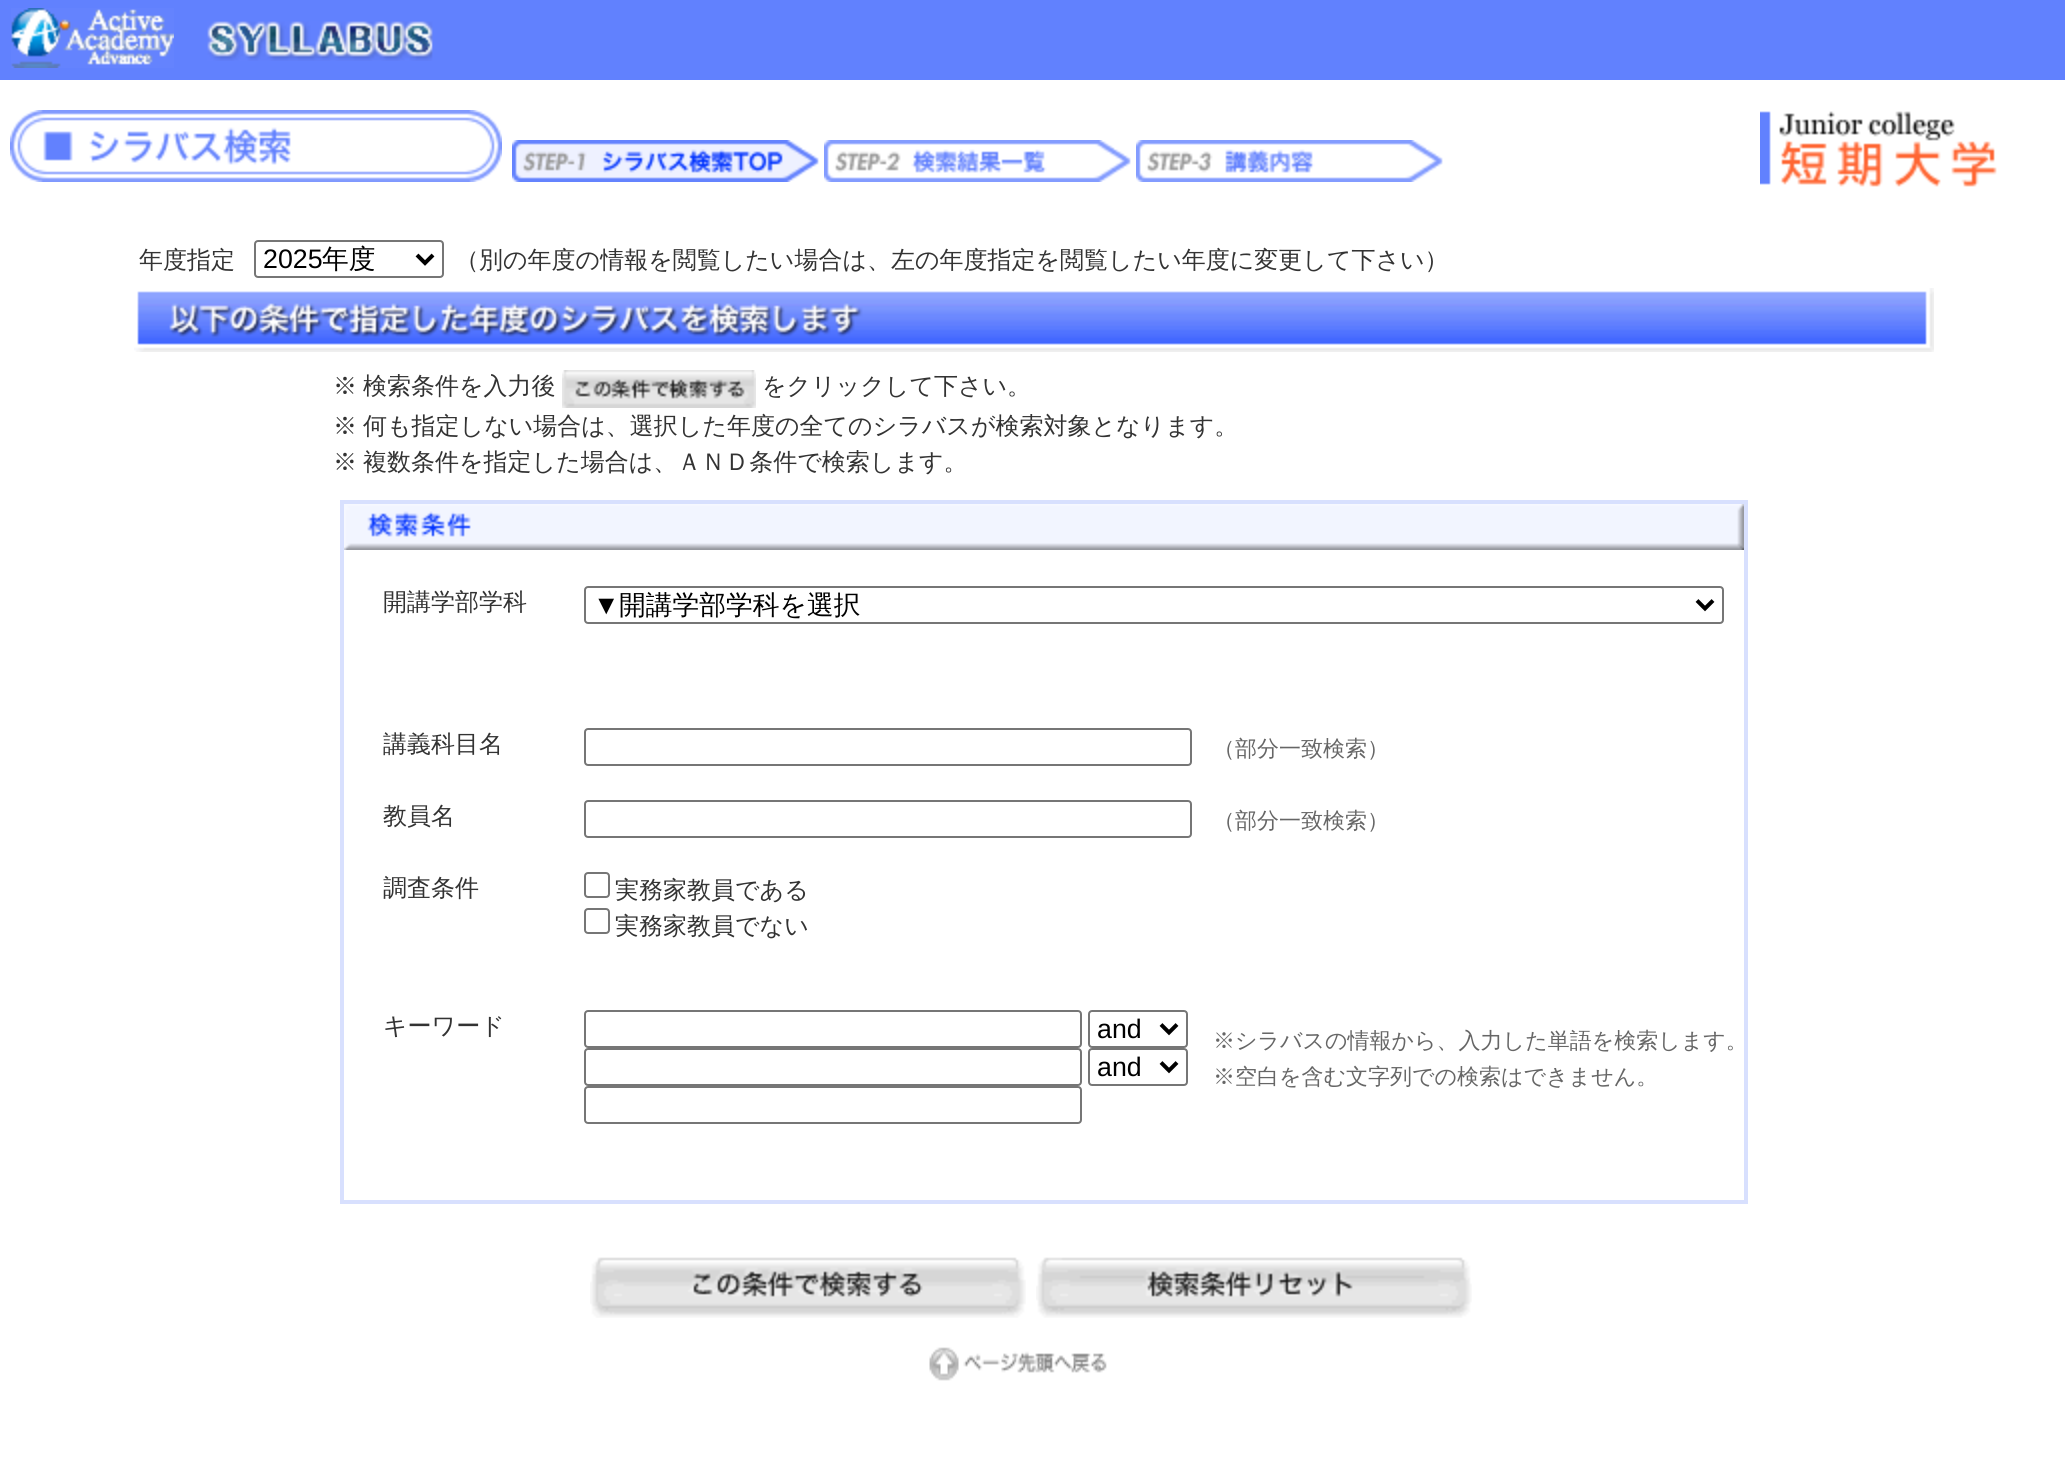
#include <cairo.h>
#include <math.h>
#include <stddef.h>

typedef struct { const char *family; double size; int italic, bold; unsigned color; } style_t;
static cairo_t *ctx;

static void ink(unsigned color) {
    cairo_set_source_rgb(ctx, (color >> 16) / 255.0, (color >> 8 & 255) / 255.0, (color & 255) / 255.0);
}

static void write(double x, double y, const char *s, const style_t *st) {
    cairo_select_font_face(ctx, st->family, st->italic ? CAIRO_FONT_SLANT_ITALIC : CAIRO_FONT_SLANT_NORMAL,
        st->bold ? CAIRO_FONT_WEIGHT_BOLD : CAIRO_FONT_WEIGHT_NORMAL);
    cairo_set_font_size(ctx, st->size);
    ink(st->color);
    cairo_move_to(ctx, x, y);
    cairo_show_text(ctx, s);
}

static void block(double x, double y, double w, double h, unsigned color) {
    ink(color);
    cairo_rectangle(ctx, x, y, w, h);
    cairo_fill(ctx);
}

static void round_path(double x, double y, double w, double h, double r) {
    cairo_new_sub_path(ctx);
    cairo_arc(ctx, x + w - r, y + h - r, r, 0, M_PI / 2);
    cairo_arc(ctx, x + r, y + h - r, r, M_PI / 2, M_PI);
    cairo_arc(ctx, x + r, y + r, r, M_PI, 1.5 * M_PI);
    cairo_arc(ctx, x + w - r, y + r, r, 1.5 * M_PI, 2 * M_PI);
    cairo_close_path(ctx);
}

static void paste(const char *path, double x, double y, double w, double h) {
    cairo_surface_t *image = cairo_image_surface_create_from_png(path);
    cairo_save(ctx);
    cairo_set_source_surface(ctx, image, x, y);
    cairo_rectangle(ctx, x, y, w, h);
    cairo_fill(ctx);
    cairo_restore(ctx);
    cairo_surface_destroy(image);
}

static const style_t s1 = {"WenQuanYi Zen Hei Medium", 24, 0, 0, 0x333333};
static const style_t s2 = {"Liberation Sans", 26.75, 0, 0, 0x000000};
static const style_t s3 = {"WenQuanYi Zen Hei Medium", 26.75, 0, 0, 0x000000};
static const style_t s4 = {"WenQuanYi Zen Hei Medium", 22, 0, 0, 0x666666};

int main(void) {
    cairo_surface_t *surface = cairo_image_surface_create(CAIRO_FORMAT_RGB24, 2065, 1470);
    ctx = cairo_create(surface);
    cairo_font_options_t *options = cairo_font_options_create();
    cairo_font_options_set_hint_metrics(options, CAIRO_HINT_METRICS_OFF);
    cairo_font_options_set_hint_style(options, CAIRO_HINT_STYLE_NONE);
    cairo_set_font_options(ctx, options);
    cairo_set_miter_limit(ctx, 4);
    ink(0xffffff);
    cairo_paint(ctx);
    block(0, 0, 2065, 80, 0x6181fe);
    paste("pic1.png", 11, 8, 163, 60);
    paste("pic2.png", 207, 21, 226, 40);
    paste("pic3.png", 1760, 111, 237, 76);
    paste("pic4.png", 10, 110, 492, 72);
    paste("pic5.png", 512, 140, 307, 42);
    paste("pic6.png", 824, 140, 307, 42);
    paste("pic7.png", 1136, 140, 307, 42);
    write(139, 268, "年度指定", &s1);
    round_path(255, 241, 188, 36, 3);
    ink(0x767676);
    cairo_stroke(ctx);
    cairo_new_path(ctx);
    cairo_move_to(ctx, 417, 255);
    cairo_line_to(ctx, 425, 263);
    cairo_line_to(ctx, 433, 255);
    ink(0x000000);
    cairo_set_line_width(ctx, 4);
    cairo_stroke(ctx);
    write(263, 268, "2025", &s2);
    write(322, 268, "年度", &s3);
    write(455, 268, "（別の年度の情報を閲覧したい場合は、左の年度指定を閲覧したい年度に変更して下さい）", &s1);
    paste("pic8.png", 134, 288, 1800, 64);
    write(333, 394, "※", &s1);
    write(363, 394, "検索条件を入力後", &s1);
    paste("pic9.png", 562, 370, 194, 38);
    write(762, 394, "をクリックして下さい。", &s1);
    write(333, 434, "※", &s1);
    write(363, 434, "何も指定しない場合は、選択した年度の全てのシラバスが検索対象となります。", &s1);
    write(333, 470, "※", &s1);
    write(363, 470, "複数条件を指定した場合は、ＡＮＤ条件で検索します。", &s1);
    cairo_rectangle(ctx, 342, 502, 1404, 700);
    ink(0xd8e0fe);
    cairo_stroke(ctx);
    paste("pic10.png", 344, 504, 1400, 46);
    write(383, 610, "開講学部学科", &s1);
    round_path(585, 587, 1138, 36, 3);
    ink(0x767676);
    cairo_set_line_width(ctx, 2);
    cairo_stroke(ctx);
    cairo_new_path(ctx);
    cairo_move_to(ctx, 1697, 600.5);
    cairo_line_to(ctx, 1705, 608.5);
    cairo_line_to(ctx, 1713, 600.5);
    ink(0x000000);
    cairo_set_line_width(ctx, 4);
    cairo_stroke(ctx);
    write(593, 614, "▼", &s2);
    write(619, 614, "開講学部学科を選択", &s3);
    write(383, 752, "講義科目名", &s1);
    round_path(585, 729, 606, 36, 3);
    ink(0x767676);
    cairo_set_line_width(ctx, 2);
    cairo_stroke(ctx);
    write(1213, 756, "（部分一致検索）", &s4);
    write(383, 824, "教員名", &s1);
    round_path(585, 801, 606, 36, 3);
    ink(0x767676);
    cairo_stroke(ctx);
    write(1213, 828, "（部分一致検索）", &s4);
    write(383, 896, "調査条件", &s1);
    round_path(585, 873, 24, 24, 3);
    ink(0x767676);
    cairo_stroke(ctx);
    write(615, 898, "実務家教員である", &s1);
    round_path(585, 909, 24, 24, 3);
    ink(0x767676);
    cairo_stroke(ctx);
    write(615, 934, "実務家教員でない", &s1);
    write(383, 1034, "キーワード", &s1);
    round_path(585, 1011, 496, 36, 3);
    ink(0x767676);
    cairo_stroke(ctx);
    round_path(1089, 1011, 98, 36, 3);
    cairo_stroke(ctx);
    cairo_new_path(ctx);
    cairo_move_to(ctx, 1161, 1024.5);
    cairo_line_to(ctx, 1169, 1032.5);
    cairo_line_to(ctx, 1177, 1024.5);
    ink(0x000000);
    cairo_set_line_width(ctx, 4);
    cairo_stroke(ctx);
    write(1097, 1038, "and", &s2);
    round_path(585, 1049, 496, 36, 3);
    ink(0x767676);
    cairo_set_line_width(ctx, 2);
    cairo_stroke(ctx);
    round_path(1089, 1049, 98, 36, 3);
    cairo_stroke(ctx);
    cairo_new_path(ctx);
    cairo_move_to(ctx, 1161, 1062.5);
    cairo_line_to(ctx, 1169, 1070.5);
    cairo_line_to(ctx, 1177, 1062.5);
    ink(0x000000);
    cairo_set_line_width(ctx, 4);
    cairo_stroke(ctx);
    write(1097, 1076, "and", &s2);
    round_path(585, 1087, 496, 36, 3);
    ink(0x767676);
    cairo_set_line_width(ctx, 2);
    cairo_stroke(ctx);
    write(1213, 1048, "※シラバスの情報から、入力した単語を検索します。", &s4);
    write(1213, 1084, "※空白を含む文字列での検索はできません。", &s4);
    paste("pic11.png", 590, 1257, 436, 61);
    paste("pic12.png", 1036, 1257, 436, 61);
    paste("pic13.png", 929, 1347, 178, 34);
    cairo_surface_write_to_png(surface, "screenshot.png");
    cairo_font_options_destroy(options);
    cairo_destroy(ctx);
    cairo_surface_destroy(surface);
    return 0;
}
